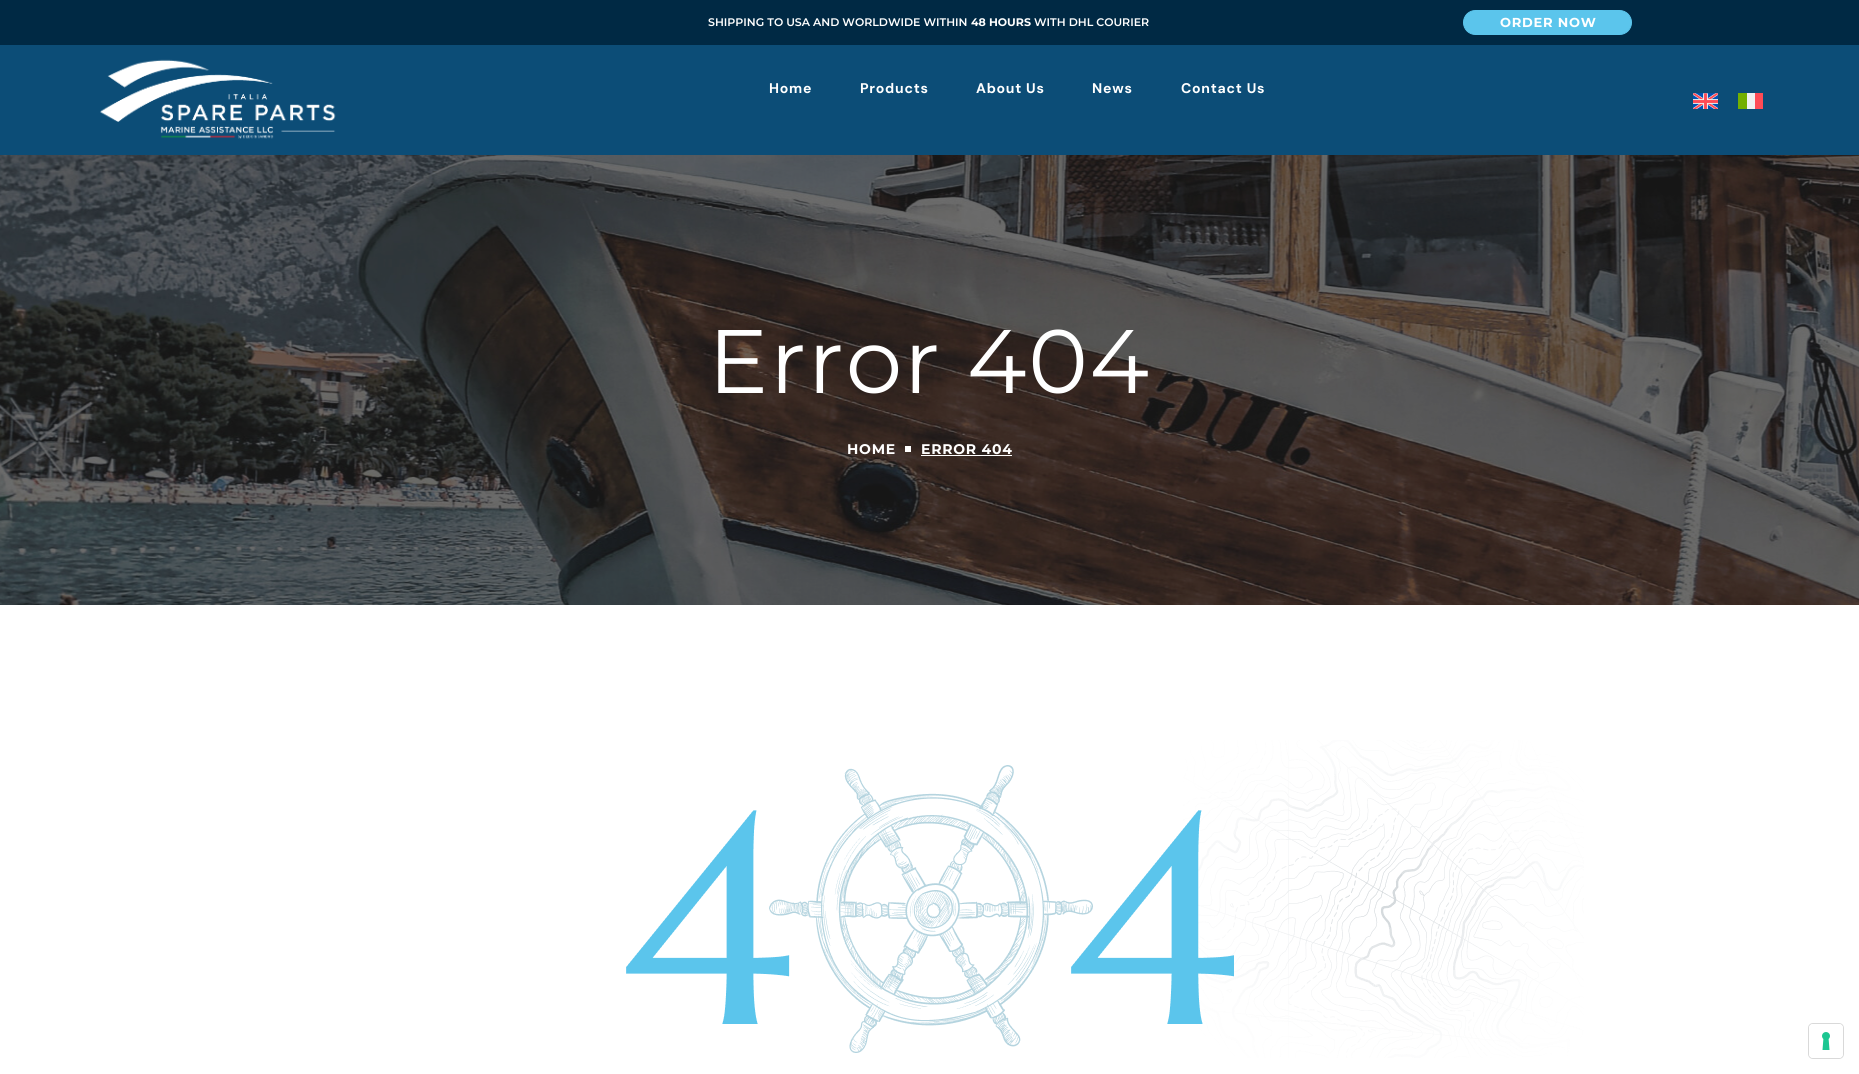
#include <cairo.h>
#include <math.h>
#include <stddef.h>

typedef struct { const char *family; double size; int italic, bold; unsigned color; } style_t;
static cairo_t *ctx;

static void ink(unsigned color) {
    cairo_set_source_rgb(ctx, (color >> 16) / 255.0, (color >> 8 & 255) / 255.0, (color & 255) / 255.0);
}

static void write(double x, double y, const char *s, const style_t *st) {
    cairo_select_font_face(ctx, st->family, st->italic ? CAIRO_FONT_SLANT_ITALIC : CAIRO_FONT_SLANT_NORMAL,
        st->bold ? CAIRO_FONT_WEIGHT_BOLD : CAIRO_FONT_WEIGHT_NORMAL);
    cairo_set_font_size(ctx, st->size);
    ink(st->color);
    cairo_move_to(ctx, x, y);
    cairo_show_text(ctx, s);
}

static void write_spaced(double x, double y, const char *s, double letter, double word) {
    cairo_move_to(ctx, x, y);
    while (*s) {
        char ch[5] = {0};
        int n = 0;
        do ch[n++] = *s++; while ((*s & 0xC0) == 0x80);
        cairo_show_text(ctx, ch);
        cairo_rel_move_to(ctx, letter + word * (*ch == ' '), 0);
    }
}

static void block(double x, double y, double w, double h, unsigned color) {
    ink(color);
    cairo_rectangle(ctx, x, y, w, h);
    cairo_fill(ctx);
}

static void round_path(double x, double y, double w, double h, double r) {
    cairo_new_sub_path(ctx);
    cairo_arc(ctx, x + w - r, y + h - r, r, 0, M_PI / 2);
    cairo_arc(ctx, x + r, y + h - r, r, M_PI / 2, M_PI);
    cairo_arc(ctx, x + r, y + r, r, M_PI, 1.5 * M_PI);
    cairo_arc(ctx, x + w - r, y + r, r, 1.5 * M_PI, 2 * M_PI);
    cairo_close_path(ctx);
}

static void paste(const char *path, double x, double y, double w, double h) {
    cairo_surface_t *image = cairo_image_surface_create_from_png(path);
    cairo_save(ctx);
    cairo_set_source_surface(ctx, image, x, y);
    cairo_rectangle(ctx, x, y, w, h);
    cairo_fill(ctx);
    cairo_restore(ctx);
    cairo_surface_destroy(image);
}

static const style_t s1 = {"Montserrat SemiBold", 11, 0, 0, 0xffffff};
static const style_t s2 = {"Montserrat", 11, 0, 1, 0xffffff};

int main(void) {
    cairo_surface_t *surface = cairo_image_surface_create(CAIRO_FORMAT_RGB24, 1859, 1074);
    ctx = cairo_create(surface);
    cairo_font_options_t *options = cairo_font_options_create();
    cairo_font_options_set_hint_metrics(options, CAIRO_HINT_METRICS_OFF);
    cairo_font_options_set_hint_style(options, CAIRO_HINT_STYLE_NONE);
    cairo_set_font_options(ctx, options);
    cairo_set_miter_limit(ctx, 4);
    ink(0xffffff);
    cairo_paint(ctx);
    block(0, 0, 1859, 45, 0x002944);
    write(708, 26, "SHIPPING TO USA AND WORLDWIDE WITHIN", &s1);
    write(971, 26, "48 HOURS", &s2);
    write(1034, 26, "WITH DHL COURIER", &s1);
    ink(0x5bc5ec);
    round_path(1463.5, 10.5, 168, 24, 12);
    cairo_fill_preserve(ctx);
    cairo_set_line_width(ctx, 1);
    cairo_stroke(ctx);
    cairo_select_font_face(ctx, "Montserrat", CAIRO_FONT_SLANT_NORMAL, CAIRO_FONT_WEIGHT_BOLD);
    cairo_set_font_size(ctx, 13);
    ink(0xffffff);
    write_spaced(1500, 27, "ORDER NOW", 0.75, 0);
    block(0, 45, 1859, 110, 0x0c4d77);
    paste("pic1.png", 100, 59, 236, 80);
    cairo_select_font_face(ctx, "DM Sans", CAIRO_FONT_SLANT_NORMAL, CAIRO_FONT_WEIGHT_BOLD);
    cairo_set_font_size(ctx, 14);
    ink(0xffffff);
    write_spaced(769, 93, "Home", 0.75, 0);
    write_spaced(860, 93, "Products", 0.75, 0);
    write_spaced(976, 93, "About Us", 0.75, 0);
    write_spaced(1092, 93, "News", 0.75, 0);
    write_spaced(1181, 93, "Contact Us", 0.75, 0);
    paste("pic2.png", 1693, 93, 25, 16);
    block(1738, 93, 9, 16, 0x73af00);
    block(1747, 93, 8, 16, 0xf0f0f0);
    block(1755, 93, 8, 16, 0xff4b55);
    paste("pic3.png", 0, 155, 1859, 450);
    cairo_select_font_face(ctx, "Montserrat", CAIRO_FONT_SLANT_NORMAL, CAIRO_FONT_WEIGHT_NORMAL);
    cairo_set_font_size(ctx, 90);
    ink(0xffffff);
    write_spaced(708, 393, "Error 404", 1.75, 0);
    cairo_select_font_face(ctx, "Montserrat", CAIRO_FONT_SLANT_NORMAL, CAIRO_FONT_WEIGHT_BOLD);
    cairo_set_font_size(ctx, 14);
    write_spaced(847, 454, "HOME", 0.75, 0);
    block(905, 446, 6, 6, 0xffffff);
    write_spaced(921, 454, "ERROR 404", 0.75, 0);
    block(921, 455, 91, 1, 0xffffff);
    paste("pic4.png", 1183, 740, 401, 318);
    paste("pic5.png", 626, 765, 608, 288);
    round_path(1808.5, 1023.5, 35, 35, 4.5);
    ink(0xd9d9d9);
    cairo_stroke(ctx);
    ink(0xffffff);
    round_path(1809, 1024, 34, 34, 4);
    cairo_fill(ctx);
    paste("pic6.png", 1822, 1032, 8, 18);
    cairo_surface_write_to_png(surface, "screenshot.png");
    cairo_font_options_destroy(options);
    cairo_destroy(ctx);
    cairo_surface_destroy(surface);
    return 0;
}
